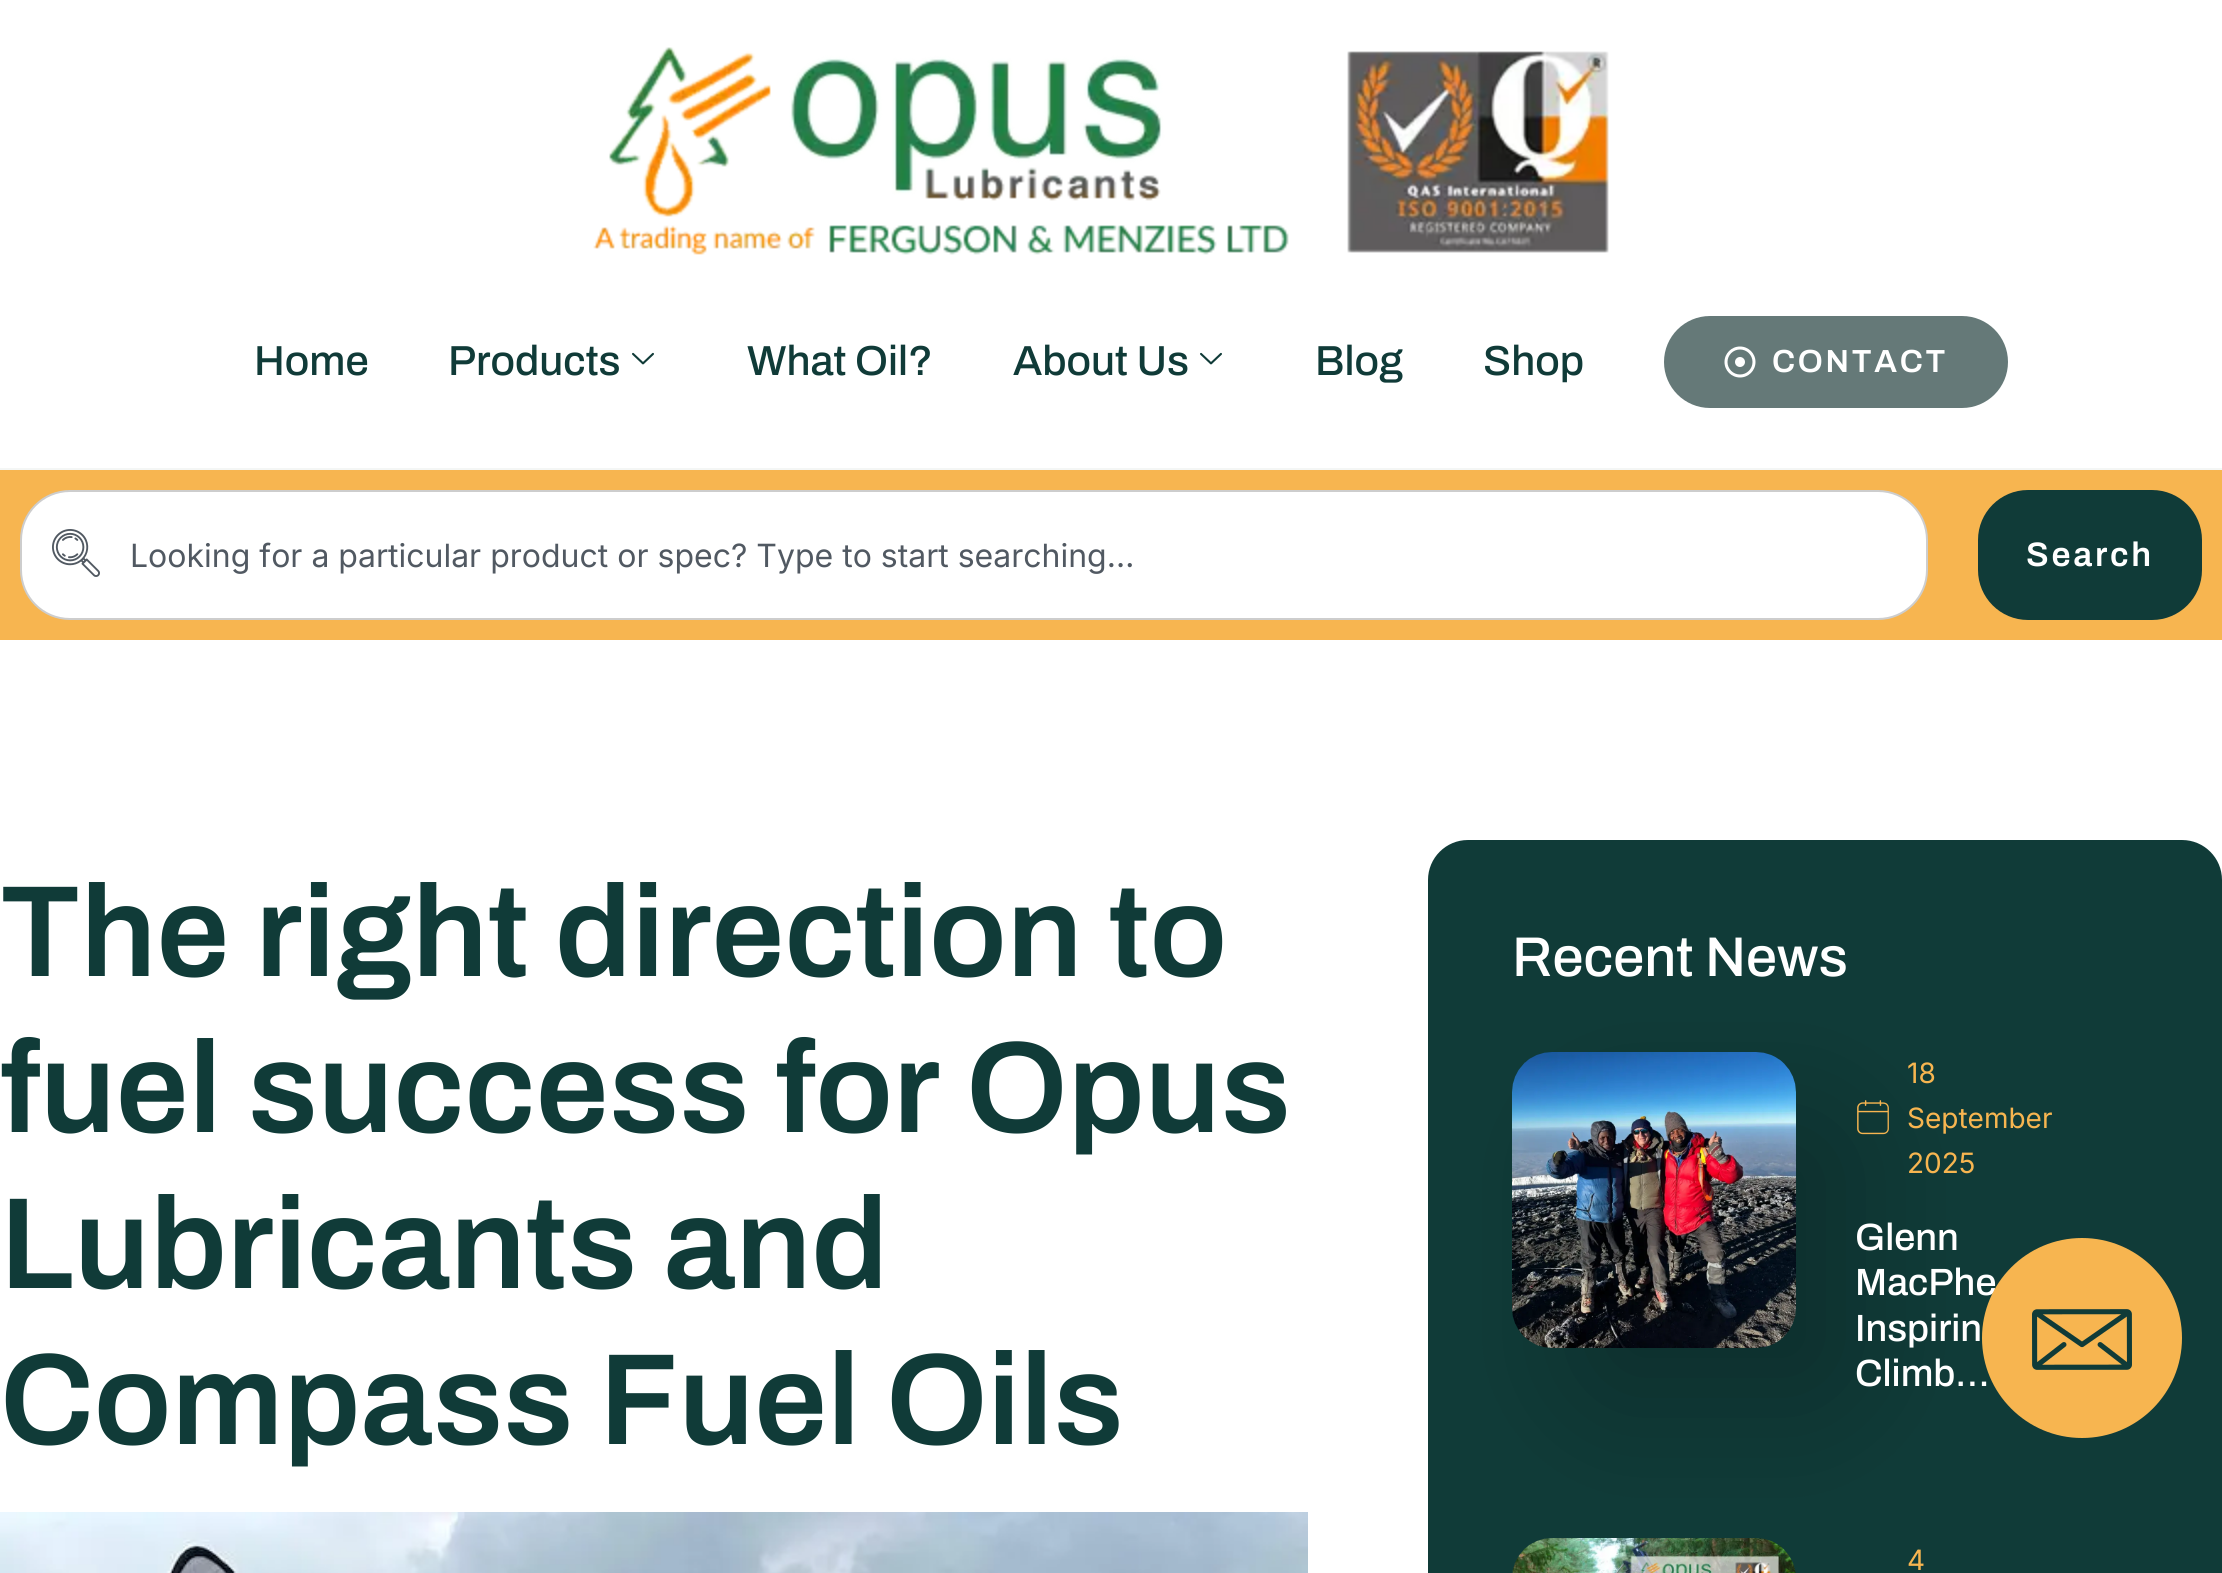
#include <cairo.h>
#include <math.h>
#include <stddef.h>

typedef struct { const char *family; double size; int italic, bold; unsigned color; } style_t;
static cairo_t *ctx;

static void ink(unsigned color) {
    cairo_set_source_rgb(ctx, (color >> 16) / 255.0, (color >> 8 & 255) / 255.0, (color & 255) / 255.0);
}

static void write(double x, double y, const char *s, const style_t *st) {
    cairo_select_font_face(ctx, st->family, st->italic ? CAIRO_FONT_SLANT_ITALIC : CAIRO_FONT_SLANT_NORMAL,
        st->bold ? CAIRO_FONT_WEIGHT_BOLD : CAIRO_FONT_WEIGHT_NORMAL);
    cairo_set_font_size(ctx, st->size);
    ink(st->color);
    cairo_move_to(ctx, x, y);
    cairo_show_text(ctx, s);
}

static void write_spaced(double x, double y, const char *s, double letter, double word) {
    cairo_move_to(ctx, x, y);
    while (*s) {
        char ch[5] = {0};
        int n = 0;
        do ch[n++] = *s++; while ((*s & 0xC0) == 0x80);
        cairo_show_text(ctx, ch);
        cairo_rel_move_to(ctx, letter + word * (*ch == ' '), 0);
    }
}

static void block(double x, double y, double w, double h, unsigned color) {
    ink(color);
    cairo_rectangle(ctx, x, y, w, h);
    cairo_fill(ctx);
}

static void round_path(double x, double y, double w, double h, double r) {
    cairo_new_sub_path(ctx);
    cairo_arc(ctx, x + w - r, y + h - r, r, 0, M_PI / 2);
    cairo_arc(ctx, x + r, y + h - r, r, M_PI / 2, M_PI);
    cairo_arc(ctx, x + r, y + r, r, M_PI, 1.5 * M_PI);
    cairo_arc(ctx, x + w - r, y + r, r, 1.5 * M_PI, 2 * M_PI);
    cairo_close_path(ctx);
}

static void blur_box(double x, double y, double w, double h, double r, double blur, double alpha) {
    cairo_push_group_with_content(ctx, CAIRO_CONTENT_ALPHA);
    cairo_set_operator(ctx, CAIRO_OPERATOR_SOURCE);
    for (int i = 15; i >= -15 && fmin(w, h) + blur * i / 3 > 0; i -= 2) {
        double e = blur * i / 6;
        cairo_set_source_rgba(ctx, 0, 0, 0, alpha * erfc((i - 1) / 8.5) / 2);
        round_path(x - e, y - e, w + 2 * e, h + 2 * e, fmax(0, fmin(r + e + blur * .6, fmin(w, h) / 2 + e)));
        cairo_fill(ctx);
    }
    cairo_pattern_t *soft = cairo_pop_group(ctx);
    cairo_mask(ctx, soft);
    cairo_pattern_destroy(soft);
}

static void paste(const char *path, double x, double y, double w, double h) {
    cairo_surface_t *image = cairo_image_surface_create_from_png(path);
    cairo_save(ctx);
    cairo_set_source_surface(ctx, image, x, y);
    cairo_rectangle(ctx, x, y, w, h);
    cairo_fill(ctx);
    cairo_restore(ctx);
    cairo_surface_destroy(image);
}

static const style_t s1 = {"Archivo Medium", 42, 0, 0, 0x103b38};
static const style_t s2 = {"Inter", 32, 0, 0, 0x515962};
static const style_t s3 = {"Archivo SemiBold", 130, 0, 0, 0x103b38};
static const style_t s4 = {"Archivo Medium", 56, 0, 0, 0xffffff};
static const style_t s5 = {"Inter", 28, 0, 0, 0xf7b550};
static const style_t s6 = {"Archivo Medium", 38, 0, 0, 0xffffff};

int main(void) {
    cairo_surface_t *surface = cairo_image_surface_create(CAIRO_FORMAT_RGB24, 2222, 1573);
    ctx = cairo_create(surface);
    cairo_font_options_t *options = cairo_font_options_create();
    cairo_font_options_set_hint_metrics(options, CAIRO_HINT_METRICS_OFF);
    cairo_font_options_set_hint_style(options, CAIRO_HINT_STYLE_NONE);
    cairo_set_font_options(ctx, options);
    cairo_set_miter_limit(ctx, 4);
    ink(0xffffff);
    cairo_paint(ctx);
    block(0, 468, 2222, 2, 0xf4f6f5);
    paste("pic1.png", 593, 47, 1016, 208);
    write(254, 375, "Home", &s1);
    write(448, 375, "Products", &s1);
    paste("pic2.png", 632, 352, 22, 13);
    write(747, 375, "What Oil?", &s1);
    write(1013, 375, "About Us", &s1);
    paste("pic2.png", 1200, 352, 22, 13);
    write(1315, 375, "Blog", &s1);
    write(1483, 375, "Shop", &s1);
    ink(0x657978);
    round_path(1664, 316, 344, 92, 46);
    cairo_fill(ctx);
    paste("pic3.png", 1724, 346, 32, 32);
    cairo_select_font_face(ctx, "Archivo SemiBold", CAIRO_FONT_SLANT_NORMAL, CAIRO_FONT_WEIGHT_NORMAL);
    cairo_set_font_size(ctx, 32);
    ink(0xffffff);
    write_spaced(1772, 372, "CONTACT", 2.75, 0);
    block(0, 470, 2222, 170, 0xf7b550);
    ink(0xffffff);
    round_path(21, 491, 1906, 128, 49);
    cairo_fill_preserve(ctx);
    ink(0xcdcdcd);
    cairo_stroke(ctx);
    paste("pic4.png", 52, 529, 48, 48);
    write(130, 567, "Looking for a particular product or spec? Type to start searching…", &s2);
    ink(0x103b38);
    round_path(1978, 490, 224, 130, 50);
    cairo_fill(ctx);
    cairo_select_font_face(ctx, "Archivo SemiBold", CAIRO_FONT_SLANT_NORMAL, CAIRO_FONT_WEIGHT_NORMAL);
    cairo_set_font_size(ctx, 34);
    ink(0xffffff);
    write_spaced(2026, 566, "Search", 2.75, 0);
    write(0, 976, "The right direction to", &s3);
    write(0, 1132, "fuel success for Opus", &s3);
    write(0, 1288, "Lubricants and", &s3);
    write(0, 1444, "Compass Fuel Oils", &s3);
    paste("pic5.png", 0, 1512, 1308, 61);
    round_path(1428, 840, 794, 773, 40);
    cairo_fill(ctx);
    write(1512, 976, "Recent News", &s4);
    ink(0x000000);
    blur_box(1572, 1112, 284, 296, 40, 60, 0.2);
    paste("pic6.png", 1512, 1052, 284, 296);
    paste("pic7.png", 1857, 1100, 32, 35);
    write(1907, 1083, "18", &s5);
    write(1907, 1128, "September", &s5);
    write(1907, 1173, "2025", &s5);
    write(1855, 1250, "Glenn", &s6);
    write(1855, 1295, "MacPhe", &s6);
    write(1855, 1341, "Inspirin", &s6);
    write(1855, 1386, "Climb…", &s6);
    paste("pic8.png", 1512, 1538, 284, 35);
    write(1907, 1570, "4", &s5);
    cairo_new_path(ctx);
    cairo_arc(ctx, 2082, 1338, 100, 0, 2 * M_PI);
    cairo_fill(ctx);
    paste("pic9.png", 2032, 1309, 100, 61);
    cairo_surface_write_to_png(surface, "screenshot.png");
    cairo_font_options_destroy(options);
    cairo_destroy(ctx);
    cairo_surface_destroy(surface);
    return 0;
}
